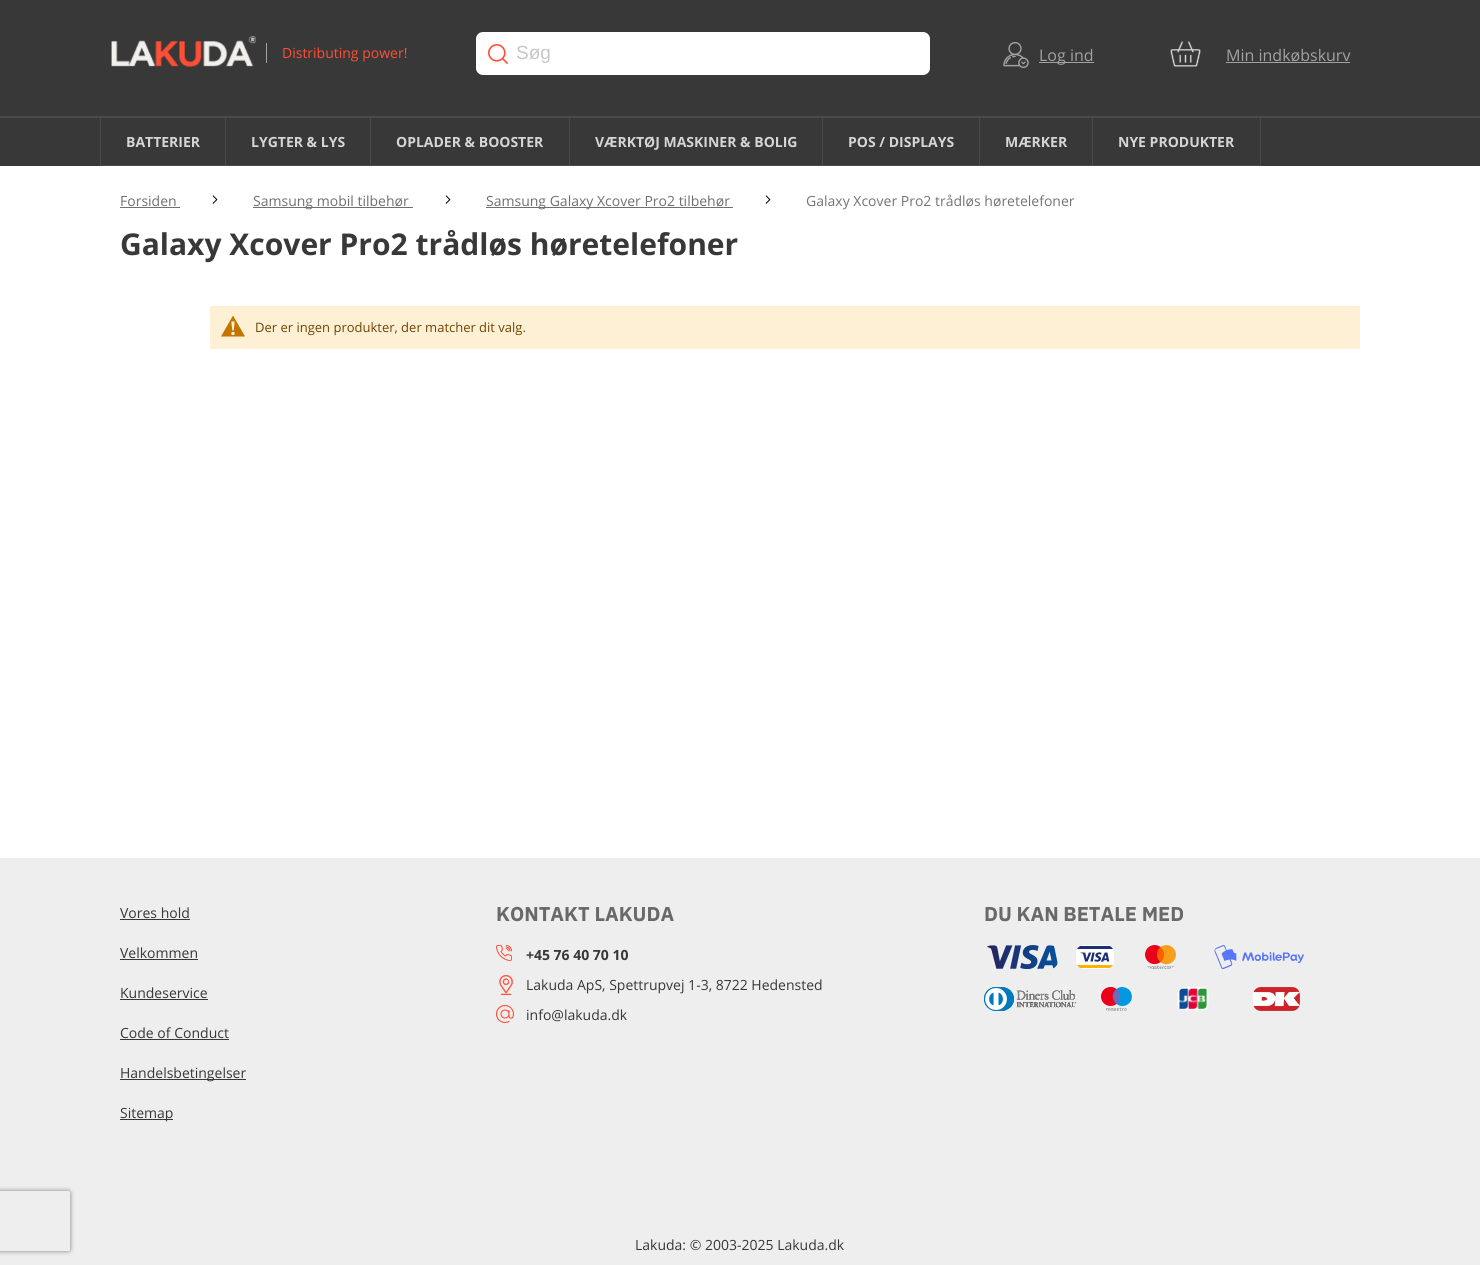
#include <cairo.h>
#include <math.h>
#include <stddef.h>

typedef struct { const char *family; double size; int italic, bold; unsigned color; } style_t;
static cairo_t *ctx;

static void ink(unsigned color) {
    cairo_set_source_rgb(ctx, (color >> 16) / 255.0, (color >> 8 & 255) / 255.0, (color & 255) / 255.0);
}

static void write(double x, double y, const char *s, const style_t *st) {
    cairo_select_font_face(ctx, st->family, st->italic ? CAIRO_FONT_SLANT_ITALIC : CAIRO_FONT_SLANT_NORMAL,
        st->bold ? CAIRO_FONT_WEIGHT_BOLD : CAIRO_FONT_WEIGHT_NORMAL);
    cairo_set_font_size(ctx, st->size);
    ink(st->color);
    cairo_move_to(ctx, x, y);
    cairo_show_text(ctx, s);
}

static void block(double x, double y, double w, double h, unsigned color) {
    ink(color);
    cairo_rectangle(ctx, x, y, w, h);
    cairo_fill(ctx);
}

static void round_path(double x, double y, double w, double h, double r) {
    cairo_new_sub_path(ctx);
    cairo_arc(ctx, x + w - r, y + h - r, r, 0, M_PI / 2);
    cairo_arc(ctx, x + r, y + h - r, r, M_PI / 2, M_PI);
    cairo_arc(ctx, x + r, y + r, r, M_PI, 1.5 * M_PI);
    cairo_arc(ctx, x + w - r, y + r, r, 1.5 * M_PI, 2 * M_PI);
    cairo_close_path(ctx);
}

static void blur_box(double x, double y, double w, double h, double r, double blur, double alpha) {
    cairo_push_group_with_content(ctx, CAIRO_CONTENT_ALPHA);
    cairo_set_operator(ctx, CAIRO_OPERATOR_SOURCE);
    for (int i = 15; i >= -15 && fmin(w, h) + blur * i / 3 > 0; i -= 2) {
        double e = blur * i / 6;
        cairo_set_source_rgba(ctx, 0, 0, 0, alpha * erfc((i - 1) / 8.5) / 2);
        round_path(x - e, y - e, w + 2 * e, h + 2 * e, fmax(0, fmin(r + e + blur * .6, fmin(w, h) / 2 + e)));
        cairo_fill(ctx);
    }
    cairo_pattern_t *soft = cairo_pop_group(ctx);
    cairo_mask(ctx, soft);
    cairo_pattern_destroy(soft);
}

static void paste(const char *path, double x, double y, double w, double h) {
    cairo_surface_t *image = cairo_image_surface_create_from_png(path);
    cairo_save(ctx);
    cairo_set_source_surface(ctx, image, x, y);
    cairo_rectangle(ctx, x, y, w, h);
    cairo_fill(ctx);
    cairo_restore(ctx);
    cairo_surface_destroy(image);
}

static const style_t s1 = {"Open Sans", 14, 0, 0, 0xff4e36};
static const style_t s2 = {"Liberation Sans", 19, 0, 0, 0xc7c7c7};
static const style_t s3 = {"Open Sans", 16, 0, 0, 0xa2a2a2};
static const style_t s4 = {"Open Sans", 14, 0, 1, 0xd5d5d5};
static const style_t s5 = {"Open Sans", 14, 0, 0, 0x707070};
static const style_t s6 = {"Open Sans", 14, 0, 0, 0x787272};
static const style_t s7 = {"Open Sans", 30, 0, 1, 0x393838};
static const style_t s8 = {"Open Sans", 13, 0, 0, 0x6f4400};
static const style_t s9 = {"Open Sans", 14, 0, 0, 0x393838};
static const style_t s10 = {"IBM Plex Sans", 20, 0, 1, 0x6a6969};
static const style_t s11 = {"Open Sans", 14, 0, 1, 0x393838};

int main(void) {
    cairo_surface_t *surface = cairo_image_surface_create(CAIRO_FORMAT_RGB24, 1480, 1265);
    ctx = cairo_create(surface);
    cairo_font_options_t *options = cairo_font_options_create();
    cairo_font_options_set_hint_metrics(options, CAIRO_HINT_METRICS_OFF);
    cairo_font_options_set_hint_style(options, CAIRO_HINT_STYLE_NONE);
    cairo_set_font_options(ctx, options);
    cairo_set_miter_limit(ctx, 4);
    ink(0xffffff);
    cairo_paint(ctx);
    block(0, 858, 1480, 407, 0xeeeeee);
    cairo_save(ctx);
    cairo_set_fill_rule(ctx, CAIRO_FILL_RULE_EVEN_ODD);
    cairo_new_path(ctx);
    cairo_move_to(ctx, 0, 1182);
    cairo_line_to(ctx, 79, 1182);
    cairo_line_to(ctx, 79, 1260);
    cairo_line_to(ctx, 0, 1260);
    cairo_close_path(ctx);
    cairo_move_to(ctx, -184, 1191);
    cairo_line_to(ctx, 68, 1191);
    cairo_curve_to(ctx, 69, 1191, 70, 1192, 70, 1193);
    cairo_line_to(ctx, 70, 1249);
    cairo_curve_to(ctx, 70, 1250, 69, 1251, 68, 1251);
    cairo_line_to(ctx, -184, 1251);
    cairo_curve_to(ctx, -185, 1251, -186, 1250, -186, 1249);
    cairo_line_to(ctx, -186, 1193);
    cairo_curve_to(ctx, -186, 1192, -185, 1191, -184, 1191);
    cairo_close_path(ctx);
    cairo_clip(ctx);
    ink(0x808080);
    blur_box(-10, 1191, 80, 60, 2, 2.5, 1);
    cairo_restore(ctx);
    block(0, 0, 1480, 116, 0x393838);
    block(0, 116, 1480, 2, 0x4b4a4a);
    paste("pic1.png", 111, 36, 145, 31);
    block(266, 43, 1, 20, 0xa2a2a2);
    write(282, 58, "Distributing power!", &s1);
    ink(0xffffff);
    round_path(476, 32, 454, 43, 7);
    cairo_fill(ctx);
    paste("pic2.png", 488, 44, 20, 20);
    write(516, 59, "Søg", &s2);
    paste("pic3.png", 1003, 42, 26, 26);
    block(1039, 62, 55, 1, 0xa2a2a2);
    write(1039, 61, "Log ind", &s3);
    paste("pic4.png", 1170, 41, 31, 26);
    write(1226, 61, "Min indkøbskurv", &s3);
    block(1226, 62, 124, 1, 0xa2a2a2);
    block(0, 118, 1480, 48, 0x393838);
    block(100, 118, 1, 48, 0x4b4a4a);
    block(225, 118, 1, 48, 0x4b4a4a);
    block(101, 165, 125, 1, 0x4b4a4a);
    write(126, 147, "BATTERIER", &s4);
    block(370, 118, 1, 48, 0x4b4a4a);
    block(226, 165, 145, 1, 0x4b4a4a);
    write(251, 147, "LYGTER & LYS", &s4);
    block(569, 118, 1, 48, 0x4b4a4a);
    block(371, 165, 199, 1, 0x4b4a4a);
    write(396, 147, "OPLADER & BOOSTER", &s4);
    block(822, 118, 1, 48, 0x4b4a4a);
    block(570, 165, 253, 1, 0x4b4a4a);
    write(595, 147, "VÆRKTØJ MASKINER & BOLIG", &s4);
    block(979, 118, 1, 48, 0x4b4a4a);
    block(823, 165, 157, 1, 0x4b4a4a);
    write(848, 147, "POS / DISPLAYS", &s4);
    block(1092, 118, 1, 48, 0x4b4a4a);
    block(980, 165, 113, 1, 0x4b4a4a);
    write(1005, 147, "MÆRKER", &s4);
    block(1260, 118, 1, 48, 0x4b4a4a);
    block(1093, 165, 168, 1, 0x4b4a4a);
    write(1118, 147, "NYE PRODUKTER", &s4);
    write(120, 206, "Forsiden", &s5);
    block(120, 207, 60, 1, 0x707070);
    paste("pic5.png", 212, 195, 6, 9);
    block(253, 207, 160, 1, 0x707070);
    write(253, 206, "Samsung mobil tilbehør", &s5);
    paste("pic5.png", 445, 195, 6, 9);
    block(486, 207, 247, 1, 0x707070);
    write(486, 206, "Samsung Galaxy Xcover Pro2 tilbehør", &s5);
    paste("pic5.png", 765, 195, 6, 9);
    write(806, 206, "Galaxy Xcover Pro2 trådløs høretelefoner", &s6);
    write(120, 255, "Galaxy Xcover Pro2 trådløs høretelefoner", &s7);
    block(210, 306, 1150, 43, 0xfdf0d5);
    paste("pic6.png", 221, 316, 24, 21);
    write(255, 332, "Der er ingen produkter, der matcher dit valg.", &s8);
    write(120, 918, "Vores hold", &s9);
    block(120, 919, 70, 1, 0x393838);
    write(120, 958, "Velkommen", &s9);
    block(120, 959, 78, 1, 0x393838);
    write(120, 998, "Kundeservice", &s9);
    block(120, 999, 88, 1, 0x393838);
    write(120, 1038, "Code of Conduct", &s9);
    block(120, 1039, 109, 1, 0x393838);
    block(120, 1079, 126, 1, 0x393838);
    write(120, 1078, "Handelsbetingelser", &s9);
    block(120, 1119, 53, 1, 0x393838);
    write(120, 1118, "Sitemap", &s9);
    write(496, 921, "KONTAKT LAKUDA", &s10);
    paste("pic7.png", 496, 945, 16, 16);
    write(526, 960, "+45 76 40 70 10", &s11);
    paste("pic8.png", 499, 975, 14, 20);
    write(526, 990, "Lakuda ApS, Spettrupvej 1-3, 8722 Hedensted", &s9);
    paste("pic9.png", 496, 1005, 18, 18);
    write(526, 1020, "info@lakuda.dk", &s9);
    write(984, 921, "DU KAN BETALE MED", &s10);
    paste("pic10.png", 987, 945, 71, 24);
    paste("pic11.png", 1076, 945, 38, 24);
    paste("pic12.png", 1145, 945, 31, 24);
    paste("pic13.png", 1214, 945, 90, 24);
    paste("pic14.png", 984, 987, 92, 24);
    paste("pic15.png", 1101, 987, 31, 24);
    paste("pic16.png", 1177, 987, 32, 24);
    paste("pic17.png", 1253, 987, 47, 24);
    write(635, 1250, "Lakuda: © 2003-2025 Lakuda.dk", &s9);
    cairo_surface_write_to_png(surface, "screenshot.png");
    cairo_font_options_destroy(options);
    cairo_destroy(ctx);
    cairo_surface_destroy(surface);
    return 0;
}
